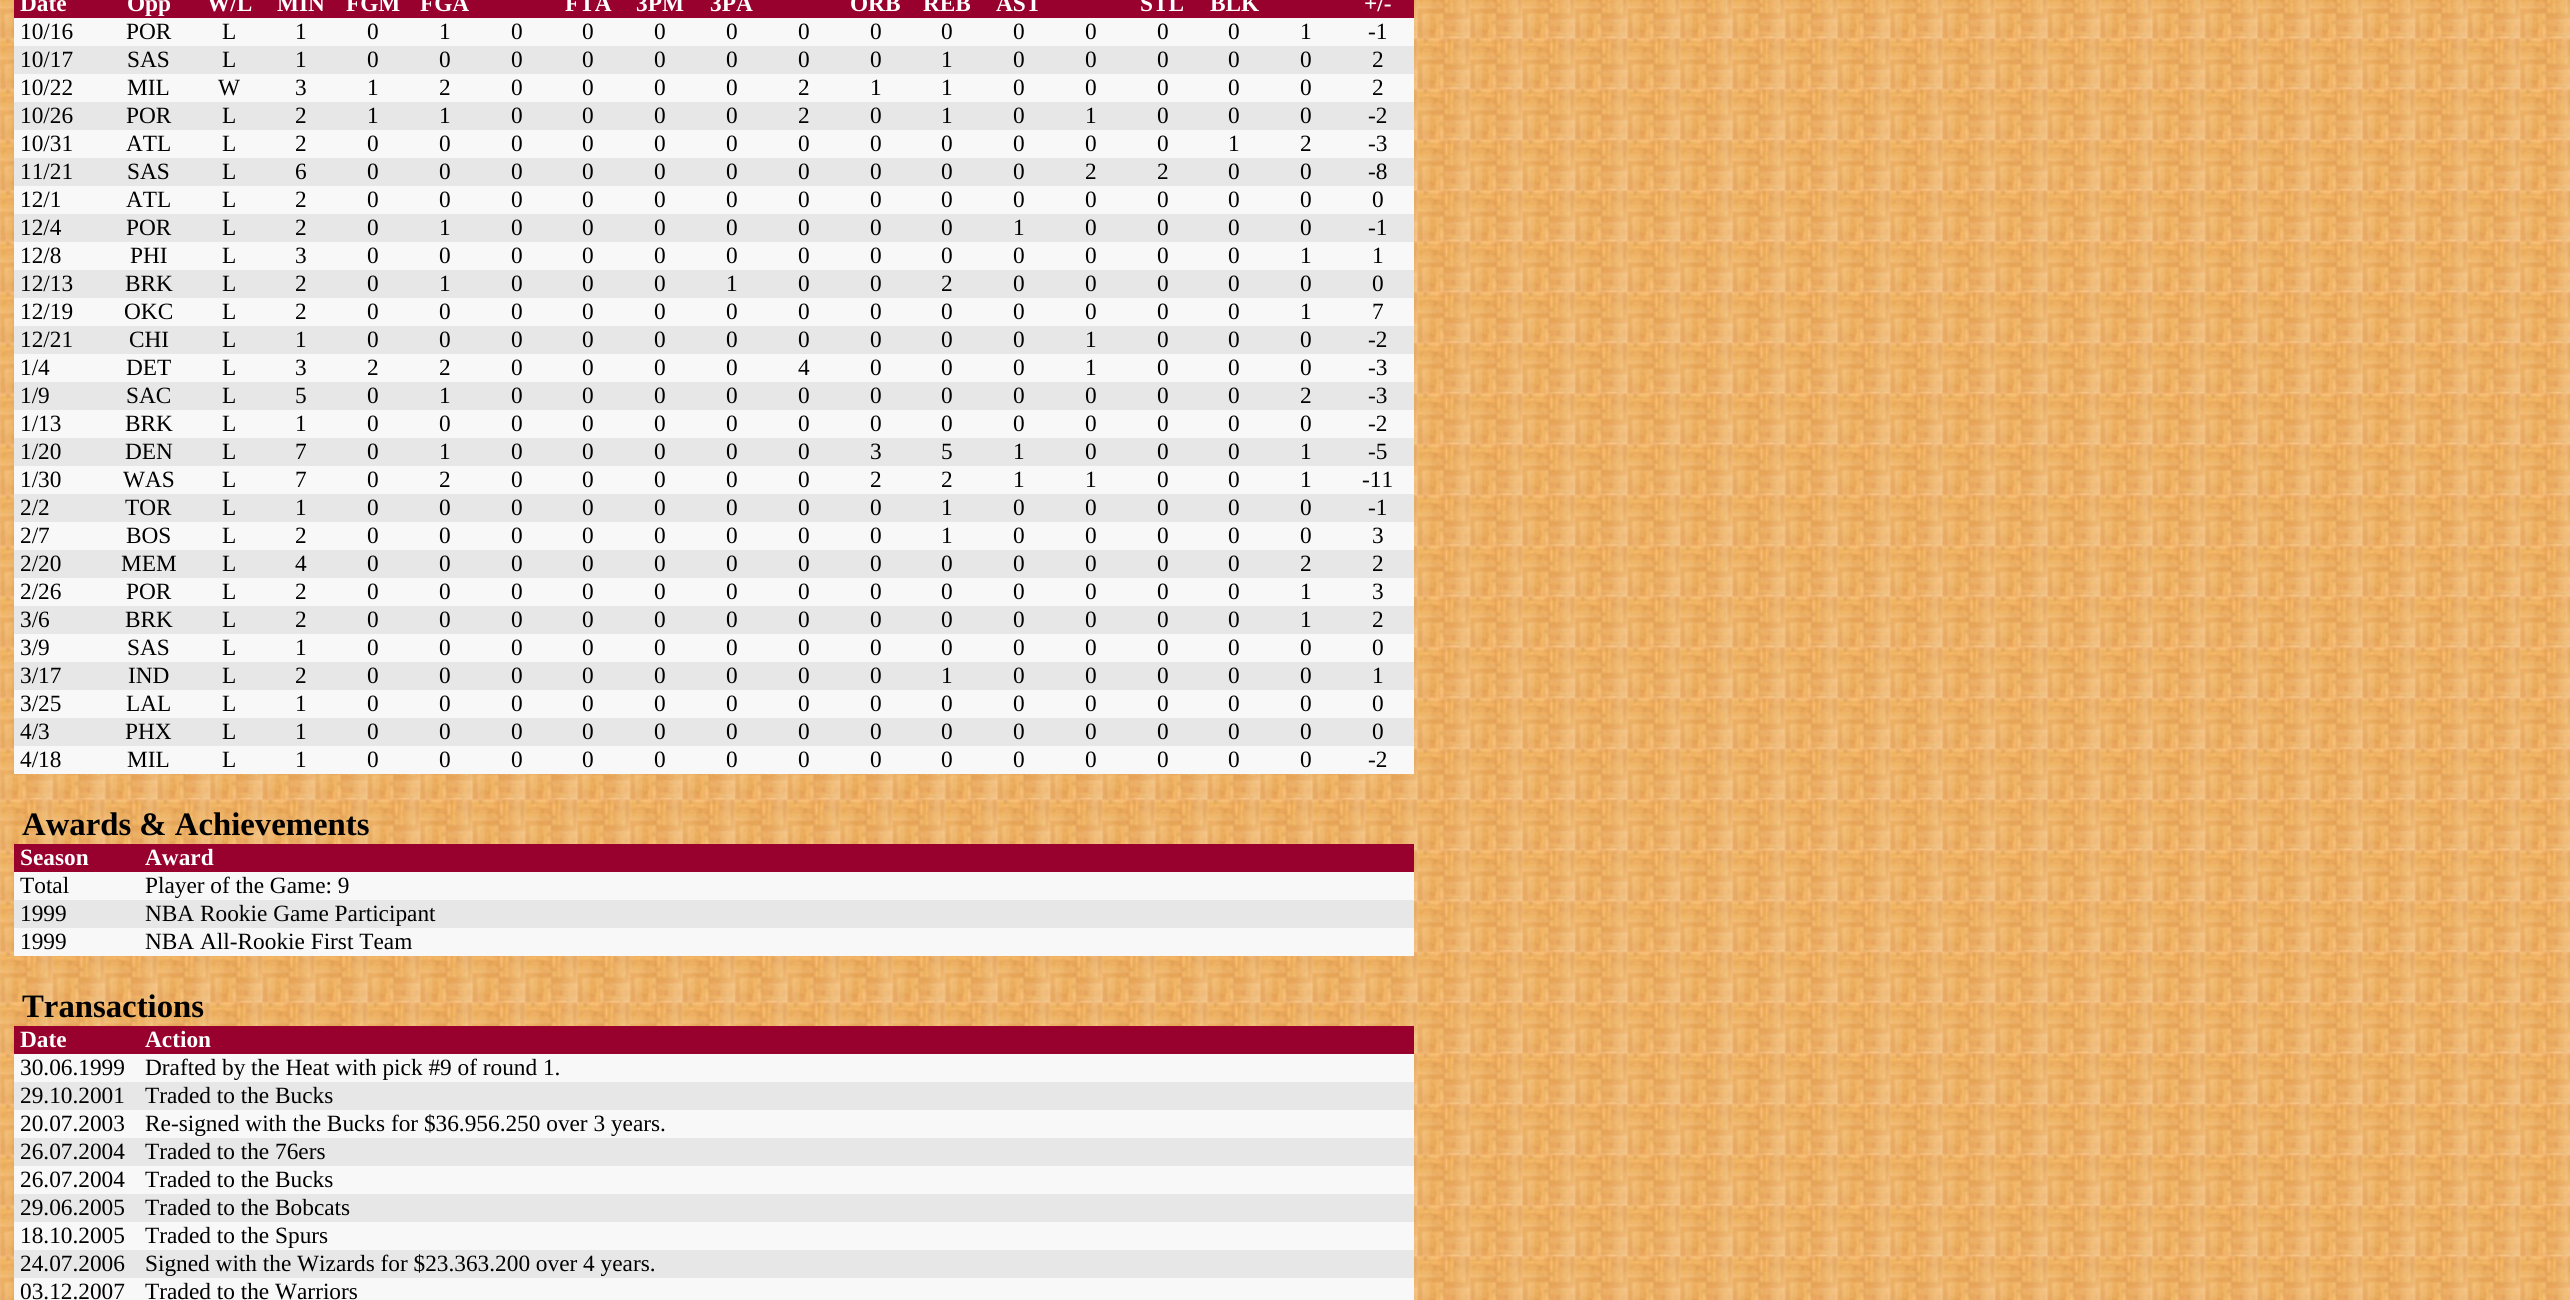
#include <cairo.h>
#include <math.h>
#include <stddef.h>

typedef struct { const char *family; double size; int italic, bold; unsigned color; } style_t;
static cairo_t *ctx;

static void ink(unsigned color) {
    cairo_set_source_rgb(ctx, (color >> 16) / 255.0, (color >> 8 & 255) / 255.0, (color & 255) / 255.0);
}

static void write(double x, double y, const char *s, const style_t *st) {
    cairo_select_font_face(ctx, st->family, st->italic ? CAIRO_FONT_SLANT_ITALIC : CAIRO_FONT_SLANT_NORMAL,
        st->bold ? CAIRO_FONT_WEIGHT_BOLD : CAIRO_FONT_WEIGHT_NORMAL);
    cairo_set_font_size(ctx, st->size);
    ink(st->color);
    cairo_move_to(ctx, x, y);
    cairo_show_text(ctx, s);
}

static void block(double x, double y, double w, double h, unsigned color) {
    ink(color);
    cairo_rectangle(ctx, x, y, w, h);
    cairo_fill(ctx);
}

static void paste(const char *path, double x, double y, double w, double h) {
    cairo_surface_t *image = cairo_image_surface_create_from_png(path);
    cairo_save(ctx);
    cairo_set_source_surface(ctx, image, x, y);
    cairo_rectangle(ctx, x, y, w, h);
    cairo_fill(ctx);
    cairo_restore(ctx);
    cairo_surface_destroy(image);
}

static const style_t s1 = {"Liberation Serif", 23.3, 0, 1, 0xffffff};
static const style_t s2 = {"Liberation Serif", 23.3, 0, 0, 0x000000};
static const style_t s3 = {"Liberation Serif", 32.75, 0, 1, 0x000000};

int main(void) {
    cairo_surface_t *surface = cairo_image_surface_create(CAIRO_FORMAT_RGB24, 2570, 1300);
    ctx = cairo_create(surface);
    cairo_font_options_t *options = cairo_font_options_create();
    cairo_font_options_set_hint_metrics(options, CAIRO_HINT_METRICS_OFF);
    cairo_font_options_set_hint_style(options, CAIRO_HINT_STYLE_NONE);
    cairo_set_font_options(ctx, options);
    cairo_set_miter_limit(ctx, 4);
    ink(0xffffff);
    cairo_paint(ctx);
    paste("pic1.png", 0, 0, 2570, 1300);
    block(14, 0, 1400, 18, 0x98012e);
    write(20, 11, "Date", &s1);
    write(127, 11, "Opp", &s1);
    write(207, 11, "W/L", &s1);
    write(277, 11, "MIN", &s1);
    write(346, 11, "FGM", &s1);
    write(420, 11, "FGA", &s1);
    write(565, 11, "FTA", &s1);
    write(636, 11, "3PM", &s1);
    write(710, 11, "3PA", &s1);
    write(850, 11, "ORB", &s1);
    write(923, 11, "REB", &s1);
    write(996, 11, "AST", &s1);
    write(1140, 11, "STL", &s1);
    write(1210, 11, "BLK", &s1);
    write(1364, 11, "+/-", &s1);
    block(14, 18, 1400, 28, 0xf8f8f8);
    write(20, 39, "10/16", &s2);
    write(126, 39, "POR", &s2);
    write(222, 39, "L", &s2);
    write(295, 39, "1", &s2);
    write(367, 39, "0", &s2);
    write(439, 39, "1", &s2);
    write(511, 39, "0", &s2);
    write(582, 39, "0", &s2);
    write(654, 39, "0", &s2);
    write(726, 39, "0", &s2);
    write(798, 39, "0", &s2);
    write(870, 39, "0", &s2);
    write(941, 39, "0", &s2);
    write(1013, 39, "0", &s2);
    write(1085, 39, "0", &s2);
    write(1157, 39, "0", &s2);
    write(1228, 39, "0", &s2);
    write(1300, 39, "1", &s2);
    write(1368, 39, "-1", &s2);
    block(14, 46, 1400, 28, 0xe7e7e7);
    write(20, 67, "10/17", &s2);
    write(127, 67, "SAS", &s2);
    write(222, 67, "L", &s2);
    write(295, 67, "1", &s2);
    write(367, 67, "0", &s2);
    write(439, 67, "0", &s2);
    write(511, 67, "0", &s2);
    write(582, 67, "0", &s2);
    write(654, 67, "0", &s2);
    write(726, 67, "0", &s2);
    write(798, 67, "0", &s2);
    write(870, 67, "0", &s2);
    write(941, 67, "1", &s2);
    write(1013, 67, "0", &s2);
    write(1085, 67, "0", &s2);
    write(1157, 67, "0", &s2);
    write(1228, 67, "0", &s2);
    write(1300, 67, "0", &s2);
    write(1372, 67, "2", &s2);
    block(14, 74, 1400, 28, 0xf8f8f8);
    write(20, 95, "10/22", &s2);
    write(127, 95, "MIL", &s2);
    write(218, 95, "W", &s2);
    write(295, 95, "3", &s2);
    write(367, 95, "1", &s2);
    write(439, 95, "2", &s2);
    write(511, 95, "0", &s2);
    write(582, 95, "0", &s2);
    write(654, 95, "0", &s2);
    write(726, 95, "0", &s2);
    write(798, 95, "2", &s2);
    write(870, 95, "1", &s2);
    write(941, 95, "1", &s2);
    write(1013, 95, "0", &s2);
    write(1085, 95, "0", &s2);
    write(1157, 95, "0", &s2);
    write(1228, 95, "0", &s2);
    write(1300, 95, "0", &s2);
    write(1372, 95, "2", &s2);
    block(14, 102, 1400, 28, 0xe7e7e7);
    write(20, 123, "10/26", &s2);
    write(126, 123, "POR", &s2);
    write(222, 123, "L", &s2);
    write(295, 123, "2", &s2);
    write(367, 123, "1", &s2);
    write(439, 123, "1", &s2);
    write(511, 123, "0", &s2);
    write(582, 123, "0", &s2);
    write(654, 123, "0", &s2);
    write(726, 123, "0", &s2);
    write(798, 123, "2", &s2);
    write(870, 123, "0", &s2);
    write(941, 123, "1", &s2);
    write(1013, 123, "0", &s2);
    write(1085, 123, "1", &s2);
    write(1157, 123, "0", &s2);
    write(1228, 123, "0", &s2);
    write(1300, 123, "0", &s2);
    write(1368, 123, "-2", &s2);
    block(14, 130, 1400, 28, 0xf8f8f8);
    write(20, 151, "10/31", &s2);
    write(126, 151, "ATL", &s2);
    write(222, 151, "L", &s2);
    write(295, 151, "2", &s2);
    write(367, 151, "0", &s2);
    write(439, 151, "0", &s2);
    write(511, 151, "0", &s2);
    write(582, 151, "0", &s2);
    write(654, 151, "0", &s2);
    write(726, 151, "0", &s2);
    write(798, 151, "0", &s2);
    write(870, 151, "0", &s2);
    write(941, 151, "0", &s2);
    write(1013, 151, "0", &s2);
    write(1085, 151, "0", &s2);
    write(1157, 151, "0", &s2);
    write(1228, 151, "1", &s2);
    write(1300, 151, "2", &s2);
    write(1368, 151, "-3", &s2);
    block(14, 158, 1400, 28, 0xe7e7e7);
    write(20, 179, "11/21", &s2);
    write(127, 179, "SAS", &s2);
    write(222, 179, "L", &s2);
    write(295, 179, "6", &s2);
    write(367, 179, "0", &s2);
    write(439, 179, "0", &s2);
    write(511, 179, "0", &s2);
    write(582, 179, "0", &s2);
    write(654, 179, "0", &s2);
    write(726, 179, "0", &s2);
    write(798, 179, "0", &s2);
    write(870, 179, "0", &s2);
    write(941, 179, "0", &s2);
    write(1013, 179, "0", &s2);
    write(1085, 179, "2", &s2);
    write(1157, 179, "2", &s2);
    write(1228, 179, "0", &s2);
    write(1300, 179, "0", &s2);
    write(1368, 179, "-8", &s2);
    block(14, 186, 1400, 28, 0xf8f8f8);
    write(20, 207, "12/1", &s2);
    write(126, 207, "ATL", &s2);
    write(222, 207, "L", &s2);
    write(295, 207, "2", &s2);
    write(367, 207, "0", &s2);
    write(439, 207, "0", &s2);
    write(511, 207, "0", &s2);
    write(582, 207, "0", &s2);
    write(654, 207, "0", &s2);
    write(726, 207, "0", &s2);
    write(798, 207, "0", &s2);
    write(870, 207, "0", &s2);
    write(941, 207, "0", &s2);
    write(1013, 207, "0", &s2);
    write(1085, 207, "0", &s2);
    write(1157, 207, "0", &s2);
    write(1228, 207, "0", &s2);
    write(1300, 207, "0", &s2);
    write(1372, 207, "0", &s2);
    block(14, 214, 1400, 28, 0xe7e7e7);
    write(20, 235, "12/4", &s2);
    write(126, 235, "POR", &s2);
    write(222, 235, "L", &s2);
    write(295, 235, "2", &s2);
    write(367, 235, "0", &s2);
    write(439, 235, "1", &s2);
    write(511, 235, "0", &s2);
    write(582, 235, "0", &s2);
    write(654, 235, "0", &s2);
    write(726, 235, "0", &s2);
    write(798, 235, "0", &s2);
    write(870, 235, "0", &s2);
    write(941, 235, "0", &s2);
    write(1013, 235, "1", &s2);
    write(1085, 235, "0", &s2);
    write(1157, 235, "0", &s2);
    write(1228, 235, "0", &s2);
    write(1300, 235, "0", &s2);
    write(1368, 235, "-1", &s2);
    block(14, 242, 1400, 28, 0xf8f8f8);
    write(20, 263, "12/8", &s2);
    write(130, 263, "PHI", &s2);
    write(222, 263, "L", &s2);
    write(295, 263, "3", &s2);
    write(367, 263, "0", &s2);
    write(439, 263, "0", &s2);
    write(511, 263, "0", &s2);
    write(582, 263, "0", &s2);
    write(654, 263, "0", &s2);
    write(726, 263, "0", &s2);
    write(798, 263, "0", &s2);
    write(870, 263, "0", &s2);
    write(941, 263, "0", &s2);
    write(1013, 263, "0", &s2);
    write(1085, 263, "0", &s2);
    write(1157, 263, "0", &s2);
    write(1228, 263, "0", &s2);
    write(1300, 263, "1", &s2);
    write(1372, 263, "1", &s2);
    block(14, 270, 1400, 28, 0xe7e7e7);
    write(20, 291, "12/13", &s2);
    write(125, 291, "BRK", &s2);
    write(222, 291, "L", &s2);
    write(295, 291, "2", &s2);
    write(367, 291, "0", &s2);
    write(439, 291, "1", &s2);
    write(511, 291, "0", &s2);
    write(582, 291, "0", &s2);
    write(654, 291, "0", &s2);
    write(726, 291, "1", &s2);
    write(798, 291, "0", &s2);
    write(870, 291, "0", &s2);
    write(941, 291, "2", &s2);
    write(1013, 291, "0", &s2);
    write(1085, 291, "0", &s2);
    write(1157, 291, "0", &s2);
    write(1228, 291, "0", &s2);
    write(1300, 291, "0", &s2);
    write(1372, 291, "0", &s2);
    block(14, 298, 1400, 28, 0xf8f8f8);
    write(20, 319, "12/19", &s2);
    write(124, 319, "OKC", &s2);
    write(222, 319, "L", &s2);
    write(295, 319, "2", &s2);
    write(367, 319, "0", &s2);
    write(439, 319, "0", &s2);
    write(511, 319, "0", &s2);
    write(582, 319, "0", &s2);
    write(654, 319, "0", &s2);
    write(726, 319, "0", &s2);
    write(798, 319, "0", &s2);
    write(870, 319, "0", &s2);
    write(941, 319, "0", &s2);
    write(1013, 319, "0", &s2);
    write(1085, 319, "0", &s2);
    write(1157, 319, "0", &s2);
    write(1228, 319, "0", &s2);
    write(1300, 319, "1", &s2);
    write(1372, 319, "7", &s2);
    block(14, 326, 1400, 28, 0xe7e7e7);
    write(20, 347, "12/21", &s2);
    write(129, 347, "CHI", &s2);
    write(222, 347, "L", &s2);
    write(295, 347, "1", &s2);
    write(367, 347, "0", &s2);
    write(439, 347, "0", &s2);
    write(511, 347, "0", &s2);
    write(582, 347, "0", &s2);
    write(654, 347, "0", &s2);
    write(726, 347, "0", &s2);
    write(798, 347, "0", &s2);
    write(870, 347, "0", &s2);
    write(941, 347, "0", &s2);
    write(1013, 347, "0", &s2);
    write(1085, 347, "1", &s2);
    write(1157, 347, "0", &s2);
    write(1228, 347, "0", &s2);
    write(1300, 347, "0", &s2);
    write(1368, 347, "-2", &s2);
    block(14, 354, 1400, 28, 0xf8f8f8);
    write(20, 375, "1/4", &s2);
    write(126, 375, "DET", &s2);
    write(222, 375, "L", &s2);
    write(295, 375, "3", &s2);
    write(367, 375, "2", &s2);
    write(439, 375, "2", &s2);
    write(511, 375, "0", &s2);
    write(582, 375, "0", &s2);
    write(654, 375, "0", &s2);
    write(726, 375, "0", &s2);
    write(798, 375, "4", &s2);
    write(870, 375, "0", &s2);
    write(941, 375, "0", &s2);
    write(1013, 375, "0", &s2);
    write(1085, 375, "1", &s2);
    write(1157, 375, "0", &s2);
    write(1228, 375, "0", &s2);
    write(1300, 375, "0", &s2);
    write(1368, 375, "-3", &s2);
    block(14, 382, 1400, 28, 0xe7e7e7);
    write(20, 403, "1/9", &s2);
    write(126, 403, "SAC", &s2);
    write(222, 403, "L", &s2);
    write(295, 403, "5", &s2);
    write(367, 403, "0", &s2);
    write(439, 403, "1", &s2);
    write(511, 403, "0", &s2);
    write(582, 403, "0", &s2);
    write(654, 403, "0", &s2);
    write(726, 403, "0", &s2);
    write(798, 403, "0", &s2);
    write(870, 403, "0", &s2);
    write(941, 403, "0", &s2);
    write(1013, 403, "0", &s2);
    write(1085, 403, "0", &s2);
    write(1157, 403, "0", &s2);
    write(1228, 403, "0", &s2);
    write(1300, 403, "2", &s2);
    write(1368, 403, "-3", &s2);
    block(14, 410, 1400, 28, 0xf8f8f8);
    write(20, 431, "1/13", &s2);
    write(125, 431, "BRK", &s2);
    write(222, 431, "L", &s2);
    write(295, 431, "1", &s2);
    write(367, 431, "0", &s2);
    write(439, 431, "0", &s2);
    write(511, 431, "0", &s2);
    write(582, 431, "0", &s2);
    write(654, 431, "0", &s2);
    write(726, 431, "0", &s2);
    write(798, 431, "0", &s2);
    write(870, 431, "0", &s2);
    write(941, 431, "0", &s2);
    write(1013, 431, "0", &s2);
    write(1085, 431, "0", &s2);
    write(1157, 431, "0", &s2);
    write(1228, 431, "0", &s2);
    write(1300, 431, "0", &s2);
    write(1368, 431, "-2", &s2);
    block(14, 438, 1400, 28, 0xe7e7e7);
    write(20, 459, "1/20", &s2);
    write(125, 459, "DEN", &s2);
    write(222, 459, "L", &s2);
    write(295, 459, "7", &s2);
    write(367, 459, "0", &s2);
    write(439, 459, "1", &s2);
    write(511, 459, "0", &s2);
    write(582, 459, "0", &s2);
    write(654, 459, "0", &s2);
    write(726, 459, "0", &s2);
    write(798, 459, "0", &s2);
    write(870, 459, "3", &s2);
    write(941, 459, "5", &s2);
    write(1013, 459, "1", &s2);
    write(1085, 459, "0", &s2);
    write(1157, 459, "0", &s2);
    write(1228, 459, "0", &s2);
    write(1300, 459, "1", &s2);
    write(1368, 459, "-5", &s2);
    block(14, 466, 1400, 28, 0xf8f8f8);
    write(20, 487, "1/30", &s2);
    write(123, 487, "WAS", &s2);
    write(222, 487, "L", &s2);
    write(295, 487, "7", &s2);
    write(367, 487, "0", &s2);
    write(439, 487, "2", &s2);
    write(511, 487, "0", &s2);
    write(582, 487, "0", &s2);
    write(654, 487, "0", &s2);
    write(726, 487, "0", &s2);
    write(798, 487, "0", &s2);
    write(870, 487, "2", &s2);
    write(941, 487, "2", &s2);
    write(1013, 487, "1", &s2);
    write(1085, 487, "1", &s2);
    write(1157, 487, "0", &s2);
    write(1228, 487, "0", &s2);
    write(1300, 487, "1", &s2);
    write(1362, 487, "-11", &s2);
    block(14, 494, 1400, 28, 0xe7e7e7);
    write(20, 515, "2/2", &s2);
    write(125, 515, "TOR", &s2);
    write(222, 515, "L", &s2);
    write(295, 515, "1", &s2);
    write(367, 515, "0", &s2);
    write(439, 515, "0", &s2);
    write(511, 515, "0", &s2);
    write(582, 515, "0", &s2);
    write(654, 515, "0", &s2);
    write(726, 515, "0", &s2);
    write(798, 515, "0", &s2);
    write(870, 515, "0", &s2);
    write(941, 515, "1", &s2);
    write(1013, 515, "0", &s2);
    write(1085, 515, "0", &s2);
    write(1157, 515, "0", &s2);
    write(1228, 515, "0", &s2);
    write(1300, 515, "0", &s2);
    write(1368, 515, "-1", &s2);
    block(14, 522, 1400, 28, 0xf8f8f8);
    write(20, 543, "2/7", &s2);
    write(126, 543, "BOS", &s2);
    write(222, 543, "L", &s2);
    write(295, 543, "2", &s2);
    write(367, 543, "0", &s2);
    write(439, 543, "0", &s2);
    write(511, 543, "0", &s2);
    write(582, 543, "0", &s2);
    write(654, 543, "0", &s2);
    write(726, 543, "0", &s2);
    write(798, 543, "0", &s2);
    write(870, 543, "0", &s2);
    write(941, 543, "1", &s2);
    write(1013, 543, "0", &s2);
    write(1085, 543, "0", &s2);
    write(1157, 543, "0", &s2);
    write(1228, 543, "0", &s2);
    write(1300, 543, "0", &s2);
    write(1372, 543, "3", &s2);
    block(14, 550, 1400, 28, 0xe7e7e7);
    write(20, 571, "2/20", &s2);
    write(121, 571, "MEM", &s2);
    write(222, 571, "L", &s2);
    write(295, 571, "4", &s2);
    write(367, 571, "0", &s2);
    write(439, 571, "0", &s2);
    write(511, 571, "0", &s2);
    write(582, 571, "0", &s2);
    write(654, 571, "0", &s2);
    write(726, 571, "0", &s2);
    write(798, 571, "0", &s2);
    write(870, 571, "0", &s2);
    write(941, 571, "0", &s2);
    write(1013, 571, "0", &s2);
    write(1085, 571, "0", &s2);
    write(1157, 571, "0", &s2);
    write(1228, 571, "0", &s2);
    write(1300, 571, "2", &s2);
    write(1372, 571, "2", &s2);
    block(14, 578, 1400, 28, 0xf8f8f8);
    write(20, 599, "2/26", &s2);
    write(126, 599, "POR", &s2);
    write(222, 599, "L", &s2);
    write(295, 599, "2", &s2);
    write(367, 599, "0", &s2);
    write(439, 599, "0", &s2);
    write(511, 599, "0", &s2);
    write(582, 599, "0", &s2);
    write(654, 599, "0", &s2);
    write(726, 599, "0", &s2);
    write(798, 599, "0", &s2);
    write(870, 599, "0", &s2);
    write(941, 599, "0", &s2);
    write(1013, 599, "0", &s2);
    write(1085, 599, "0", &s2);
    write(1157, 599, "0", &s2);
    write(1228, 599, "0", &s2);
    write(1300, 599, "1", &s2);
    write(1372, 599, "3", &s2);
    block(14, 606, 1400, 28, 0xe7e7e7);
    write(20, 627, "3/6", &s2);
    write(125, 627, "BRK", &s2);
    write(222, 627, "L", &s2);
    write(295, 627, "2", &s2);
    write(367, 627, "0", &s2);
    write(439, 627, "0", &s2);
    write(511, 627, "0", &s2);
    write(582, 627, "0", &s2);
    write(654, 627, "0", &s2);
    write(726, 627, "0", &s2);
    write(798, 627, "0", &s2);
    write(870, 627, "0", &s2);
    write(941, 627, "0", &s2);
    write(1013, 627, "0", &s2);
    write(1085, 627, "0", &s2);
    write(1157, 627, "0", &s2);
    write(1228, 627, "0", &s2);
    write(1300, 627, "1", &s2);
    write(1372, 627, "2", &s2);
    block(14, 634, 1400, 28, 0xf8f8f8);
    write(20, 655, "3/9", &s2);
    write(127, 655, "SAS", &s2);
    write(222, 655, "L", &s2);
    write(295, 655, "1", &s2);
    write(367, 655, "0", &s2);
    write(439, 655, "0", &s2);
    write(511, 655, "0", &s2);
    write(582, 655, "0", &s2);
    write(654, 655, "0", &s2);
    write(726, 655, "0", &s2);
    write(798, 655, "0", &s2);
    write(870, 655, "0", &s2);
    write(941, 655, "0", &s2);
    write(1013, 655, "0", &s2);
    write(1085, 655, "0", &s2);
    write(1157, 655, "0", &s2);
    write(1228, 655, "0", &s2);
    write(1300, 655, "0", &s2);
    write(1372, 655, "0", &s2);
    block(14, 662, 1400, 28, 0xe7e7e7);
    write(20, 683, "3/17", &s2);
    write(128, 683, "IND", &s2);
    write(222, 683, "L", &s2);
    write(295, 683, "2", &s2);
    write(367, 683, "0", &s2);
    write(439, 683, "0", &s2);
    write(511, 683, "0", &s2);
    write(582, 683, "0", &s2);
    write(654, 683, "0", &s2);
    write(726, 683, "0", &s2);
    write(798, 683, "0", &s2);
    write(870, 683, "0", &s2);
    write(941, 683, "1", &s2);
    write(1013, 683, "0", &s2);
    write(1085, 683, "0", &s2);
    write(1157, 683, "0", &s2);
    write(1228, 683, "0", &s2);
    write(1300, 683, "0", &s2);
    write(1372, 683, "1", &s2);
    block(14, 690, 1400, 28, 0xf8f8f8);
    write(20, 711, "3/25", &s2);
    write(126, 711, "LAL", &s2);
    write(222, 711, "L", &s2);
    write(295, 711, "1", &s2);
    write(367, 711, "0", &s2);
    write(439, 711, "0", &s2);
    write(511, 711, "0", &s2);
    write(582, 711, "0", &s2);
    write(654, 711, "0", &s2);
    write(726, 711, "0", &s2);
    write(798, 711, "0", &s2);
    write(870, 711, "0", &s2);
    write(941, 711, "0", &s2);
    write(1013, 711, "0", &s2);
    write(1085, 711, "0", &s2);
    write(1157, 711, "0", &s2);
    write(1228, 711, "0", &s2);
    write(1300, 711, "0", &s2);
    write(1372, 711, "0", &s2);
    block(14, 718, 1400, 28, 0xe7e7e7);
    write(20, 739, "4/3", &s2);
    write(125, 739, "PHX", &s2);
    write(222, 739, "L", &s2);
    write(295, 739, "1", &s2);
    write(367, 739, "0", &s2);
    write(439, 739, "0", &s2);
    write(511, 739, "0", &s2);
    write(582, 739, "0", &s2);
    write(654, 739, "0", &s2);
    write(726, 739, "0", &s2);
    write(798, 739, "0", &s2);
    write(870, 739, "0", &s2);
    write(941, 739, "0", &s2);
    write(1013, 739, "0", &s2);
    write(1085, 739, "0", &s2);
    write(1157, 739, "0", &s2);
    write(1228, 739, "0", &s2);
    write(1300, 739, "0", &s2);
    write(1372, 739, "0", &s2);
    block(14, 746, 1400, 28, 0xf8f8f8);
    write(20, 767, "4/18", &s2);
    write(127, 767, "MIL", &s2);
    write(222, 767, "L", &s2);
    write(295, 767, "1", &s2);
    write(367, 767, "0", &s2);
    write(439, 767, "0", &s2);
    write(511, 767, "0", &s2);
    write(582, 767, "0", &s2);
    write(654, 767, "0", &s2);
    write(726, 767, "0", &s2);
    write(798, 767, "0", &s2);
    write(870, 767, "0", &s2);
    write(941, 767, "0", &s2);
    write(1013, 767, "0", &s2);
    write(1085, 767, "0", &s2);
    write(1157, 767, "0", &s2);
    write(1228, 767, "0", &s2);
    write(1300, 767, "0", &s2);
    write(1368, 767, "-2", &s2);
    write(22, 835, "Awards & Achievements", &s3);
    block(14, 844, 1400, 28, 0x98012e);
    write(20, 865, "Season", &s1);
    write(145, 865, "Award", &s1);
    block(14, 872, 1400, 28, 0xf8f8f8);
    write(20, 893, "Total", &s2);
    write(145, 893, "Player of the Game: 9", &s2);
    block(14, 900, 1400, 28, 0xe7e7e7);
    write(20, 921, "1999", &s2);
    write(145, 921, "NBA Rookie Game Participant", &s2);
    block(14, 928, 1400, 28, 0xf8f8f8);
    write(20, 949, "1999", &s2);
    write(145, 949, "NBA All-Rookie First Team", &s2);
    write(22, 1017, "Transactions", &s3);
    block(14, 1026, 1400, 28, 0x98012e);
    write(20, 1047, "Date", &s1);
    write(145, 1047, "Action", &s1);
    block(14, 1054, 1400, 28, 0xf8f8f8);
    write(20, 1075, "30.06.1999", &s2);
    write(145, 1075, "Drafted by the Heat with pick #9 of round 1.", &s2);
    block(14, 1082, 1400, 28, 0xe7e7e7);
    write(20, 1103, "29.10.2001", &s2);
    write(145, 1103, "Traded to the Bucks", &s2);
    block(14, 1110, 1400, 28, 0xf8f8f8);
    write(20, 1131, "20.07.2003", &s2);
    write(145, 1131, "Re-signed with the Bucks for $36.956.250 over 3 years.", &s2);
    block(14, 1138, 1400, 28, 0xe7e7e7);
    write(20, 1159, "26.07.2004", &s2);
    write(145, 1159, "Traded to the 76ers", &s2);
    block(14, 1166, 1400, 28, 0xf8f8f8);
    write(20, 1187, "26.07.2004", &s2);
    write(145, 1187, "Traded to the Bucks", &s2);
    block(14, 1194, 1400, 28, 0xe7e7e7);
    write(20, 1215, "29.06.2005", &s2);
    write(145, 1215, "Traded to the Bobcats", &s2);
    block(14, 1222, 1400, 28, 0xf8f8f8);
    write(20, 1243, "18.10.2005", &s2);
    write(145, 1243, "Traded to the Spurs", &s2);
    block(14, 1250, 1400, 28, 0xe7e7e7);
    write(20, 1271, "24.07.2006", &s2);
    write(145, 1271, "Signed with the Wizards for $23.363.200 over 4 years.", &s2);
    block(14, 1278, 1400, 22, 0xf8f8f8);
    write(20, 1299, "03.12.2007", &s2);
    write(145, 1299, "Traded to the Warriors", &s2);
    cairo_surface_write_to_png(surface, "screenshot.png");
    cairo_font_options_destroy(options);
    cairo_destroy(ctx);
    cairo_surface_destroy(surface);
    return 0;
}
